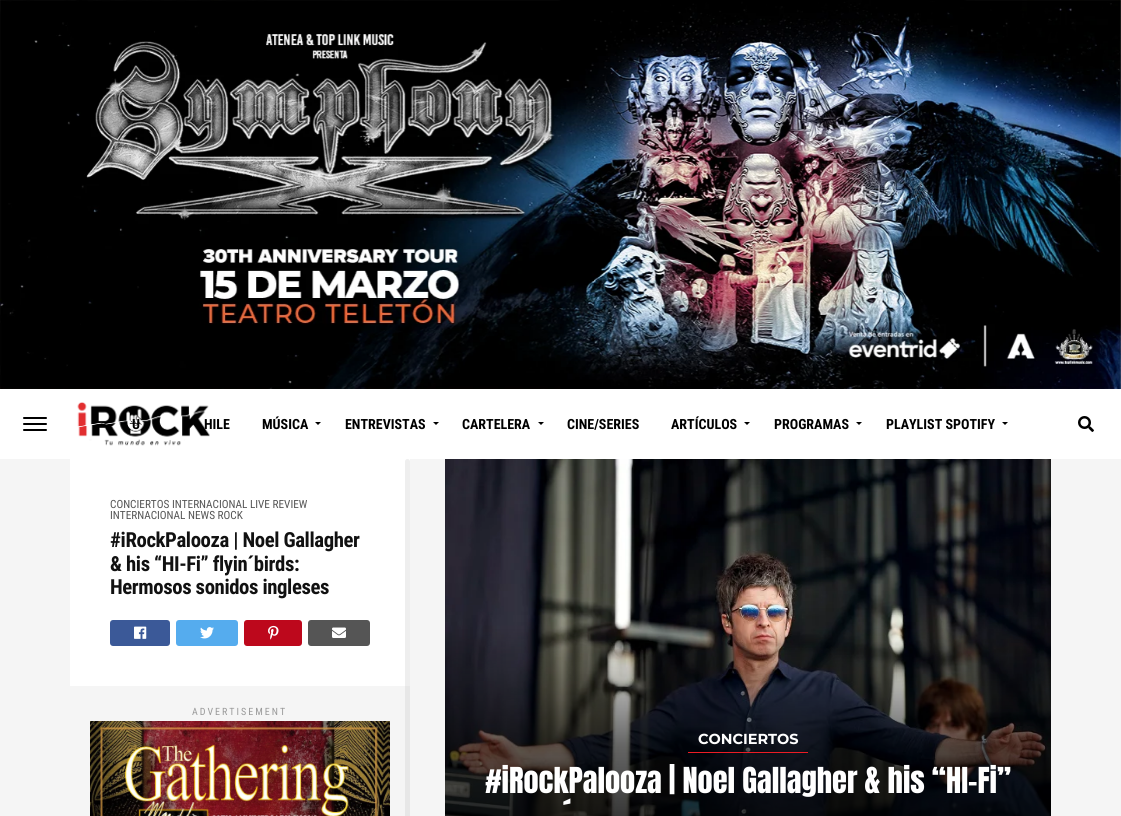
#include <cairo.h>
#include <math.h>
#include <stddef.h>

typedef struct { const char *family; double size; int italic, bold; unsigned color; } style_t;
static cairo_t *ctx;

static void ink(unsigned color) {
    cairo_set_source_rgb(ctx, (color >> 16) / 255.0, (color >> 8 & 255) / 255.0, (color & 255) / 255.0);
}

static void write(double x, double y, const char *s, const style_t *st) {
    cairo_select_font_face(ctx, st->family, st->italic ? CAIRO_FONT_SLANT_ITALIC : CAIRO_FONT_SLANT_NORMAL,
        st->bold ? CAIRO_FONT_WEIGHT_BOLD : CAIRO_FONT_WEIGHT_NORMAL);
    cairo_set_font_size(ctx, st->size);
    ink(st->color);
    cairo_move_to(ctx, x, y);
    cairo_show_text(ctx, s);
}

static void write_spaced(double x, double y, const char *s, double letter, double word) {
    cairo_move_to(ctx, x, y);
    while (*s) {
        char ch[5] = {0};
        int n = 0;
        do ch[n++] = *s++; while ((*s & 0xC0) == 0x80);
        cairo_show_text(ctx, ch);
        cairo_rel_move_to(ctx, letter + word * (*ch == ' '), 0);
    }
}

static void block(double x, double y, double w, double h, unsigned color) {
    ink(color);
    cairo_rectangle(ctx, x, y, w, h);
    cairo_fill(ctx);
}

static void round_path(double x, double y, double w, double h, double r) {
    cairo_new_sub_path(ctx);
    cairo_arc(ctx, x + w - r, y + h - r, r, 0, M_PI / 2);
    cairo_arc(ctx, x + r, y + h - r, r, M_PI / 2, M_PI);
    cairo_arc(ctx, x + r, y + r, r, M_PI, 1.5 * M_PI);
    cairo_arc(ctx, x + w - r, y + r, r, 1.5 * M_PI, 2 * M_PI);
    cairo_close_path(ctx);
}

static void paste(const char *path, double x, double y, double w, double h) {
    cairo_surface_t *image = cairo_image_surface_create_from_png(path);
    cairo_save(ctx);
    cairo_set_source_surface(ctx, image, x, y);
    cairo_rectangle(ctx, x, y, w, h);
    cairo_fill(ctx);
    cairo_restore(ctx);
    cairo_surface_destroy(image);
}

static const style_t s1 = {"Roboto Condensed", 14, 0, 1, 0x000000};
static const style_t s2 = {"Roboto Condensed", 11.25, 0, 0, 0x555555};
static const style_t s3 = {"Montserrat", 14.5, 0, 1, 0xffffff};
static const style_t s4 = {"Anton", 30.4, 0, 0, 0xffffff};

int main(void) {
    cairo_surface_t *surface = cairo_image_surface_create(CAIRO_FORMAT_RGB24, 1121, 816);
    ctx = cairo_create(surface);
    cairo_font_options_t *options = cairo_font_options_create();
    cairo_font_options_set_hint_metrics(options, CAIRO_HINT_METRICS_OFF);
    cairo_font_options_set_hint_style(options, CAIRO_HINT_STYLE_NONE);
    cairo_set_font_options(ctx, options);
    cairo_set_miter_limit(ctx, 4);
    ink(0xffffff);
    cairo_paint(ctx);
    paste("pic1.png", 0, 0, 1121, 389);
    ink(0x000000);
    round_path(23, 417, 24, 2, 1);
    cairo_fill(ctx);
    round_path(23, 423, 24, 2, 1);
    cairo_fill(ctx);
    round_path(23, 429, 24, 2, 1);
    cairo_fill(ctx);
    paste("pic2.png", 77, 402, 133, 44);
    write(132, 429, "U", &s1);
    write(204, 429, "HILE", &s1);
    write(262, 429, "MÚSICA", &s1);
    cairo_new_path(ctx);
    cairo_move_to(ctx, 315, 422);
    cairo_line_to(ctx, 321, 422);
    cairo_line_to(ctx, 318, 425);
    cairo_close_path(ctx);
    cairo_fill(ctx);
    write(345, 429, "ENTREVISTAS", &s1);
    cairo_new_path(ctx);
    cairo_move_to(ctx, 433, 422);
    cairo_line_to(ctx, 439, 422);
    cairo_line_to(ctx, 436, 425);
    cairo_close_path(ctx);
    cairo_fill(ctx);
    write(462, 429, "CARTELERA", &s1);
    cairo_new_path(ctx);
    cairo_move_to(ctx, 538, 422);
    cairo_line_to(ctx, 544, 422);
    cairo_line_to(ctx, 541, 425);
    cairo_close_path(ctx);
    cairo_fill(ctx);
    write(567, 429, "CINE/SERIES", &s1);
    write(671, 429, "ARTÍCULOS", &s1);
    cairo_new_path(ctx);
    cairo_move_to(ctx, 744, 422);
    cairo_line_to(ctx, 750, 422);
    cairo_line_to(ctx, 747, 425);
    cairo_close_path(ctx);
    cairo_fill(ctx);
    write(774, 429, "PROGRAMAS", &s1);
    cairo_new_path(ctx);
    cairo_move_to(ctx, 856, 422);
    cairo_line_to(ctx, 862, 422);
    cairo_line_to(ctx, 859, 425);
    cairo_close_path(ctx);
    cairo_fill(ctx);
    write(886, 429, "PLAYLIST SPOTIFY", &s1);
    cairo_new_path(ctx);
    cairo_move_to(ctx, 1002, 422);
    cairo_line_to(ctx, 1008, 422);
    cairo_line_to(ctx, 1005, 425);
    cairo_close_path(ctx);
    cairo_fill(ctx);
    paste("pic3.png", 1078, 416, 16, 16);
    block(0, 459, 1121, 357, 0xf5f5f5);
    block(70, 459, 340, 227, 0xffffff);
    write(110, 508, "CONCIERTOS INTERNACIONAL LIVE REVIEW", &s2);
    write(110, 519, "INTERNACIONAL NEWS ROCK", &s2);
    cairo_select_font_face(ctx, "Roboto Condensed", CAIRO_FONT_SLANT_NORMAL, CAIRO_FONT_WEIGHT_BOLD);
    cairo_set_font_size(ctx, 20.75);
    ink(0x111111);
    write_spaced(110, 547, "#iRockPalooza | Noel Gallagher", -0.4, 0);
    write_spaced(110, 571, "& his “HI-Fi” flyin´birds:", -0.4, 0);
    write_spaced(110, 594, "Hermosos sonidos ingleses", -0.4, 0);
    ink(0x3b5998);
    round_path(110, 620, 60, 26, 3);
    cairo_fill(ctx);
    paste("pic4.png", 134, 626, 13, 13);
    ink(0x55acee);
    round_path(176, 620, 62, 26, 3);
    cairo_fill(ctx);
    paste("pic5.png", 200, 627, 14, 12);
    ink(0xbd081c);
    round_path(244, 620, 58, 26, 3);
    cairo_fill(ctx);
    paste("pic6.png", 268, 625, 11, 15);
    ink(0x555555);
    round_path(308, 620, 62, 26, 3);
    cairo_fill(ctx);
    paste("pic7.png", 332, 627, 14, 11);
    cairo_select_font_face(ctx, "Roboto Condensed", CAIRO_FONT_SLANT_NORMAL, CAIRO_FONT_WEIGHT_NORMAL);
    cairo_set_font_size(ctx, 10);
    ink(0x999999);
    write_spaced(192, 715, "ADVERTISEMENT", 2, 0);
    paste("pic8.png", 90, 721, 300, 95);
    paste("pic9.png", 445, 459, 606, 357);
    block(688, 752, 120, 1, 0xed1c24);
    write(698, 744, "CONCIERTOS", &s3);
    write(485, 793, "#iRockPalooza | Noel Gallagher & his “HI-Fi”", &s4);
    write(562, 828, "´", &s4);
    cairo_set_source_rgba(ctx, 0.8, 0.8, 0.8, 0.33);
    round_path(405, 459, 5, 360, 2.5);
    cairo_fill(ctx);
    cairo_surface_write_to_png(surface, "screenshot.png");
    cairo_font_options_destroy(options);
    cairo_destroy(ctx);
    cairo_surface_destroy(surface);
    return 0;
}
